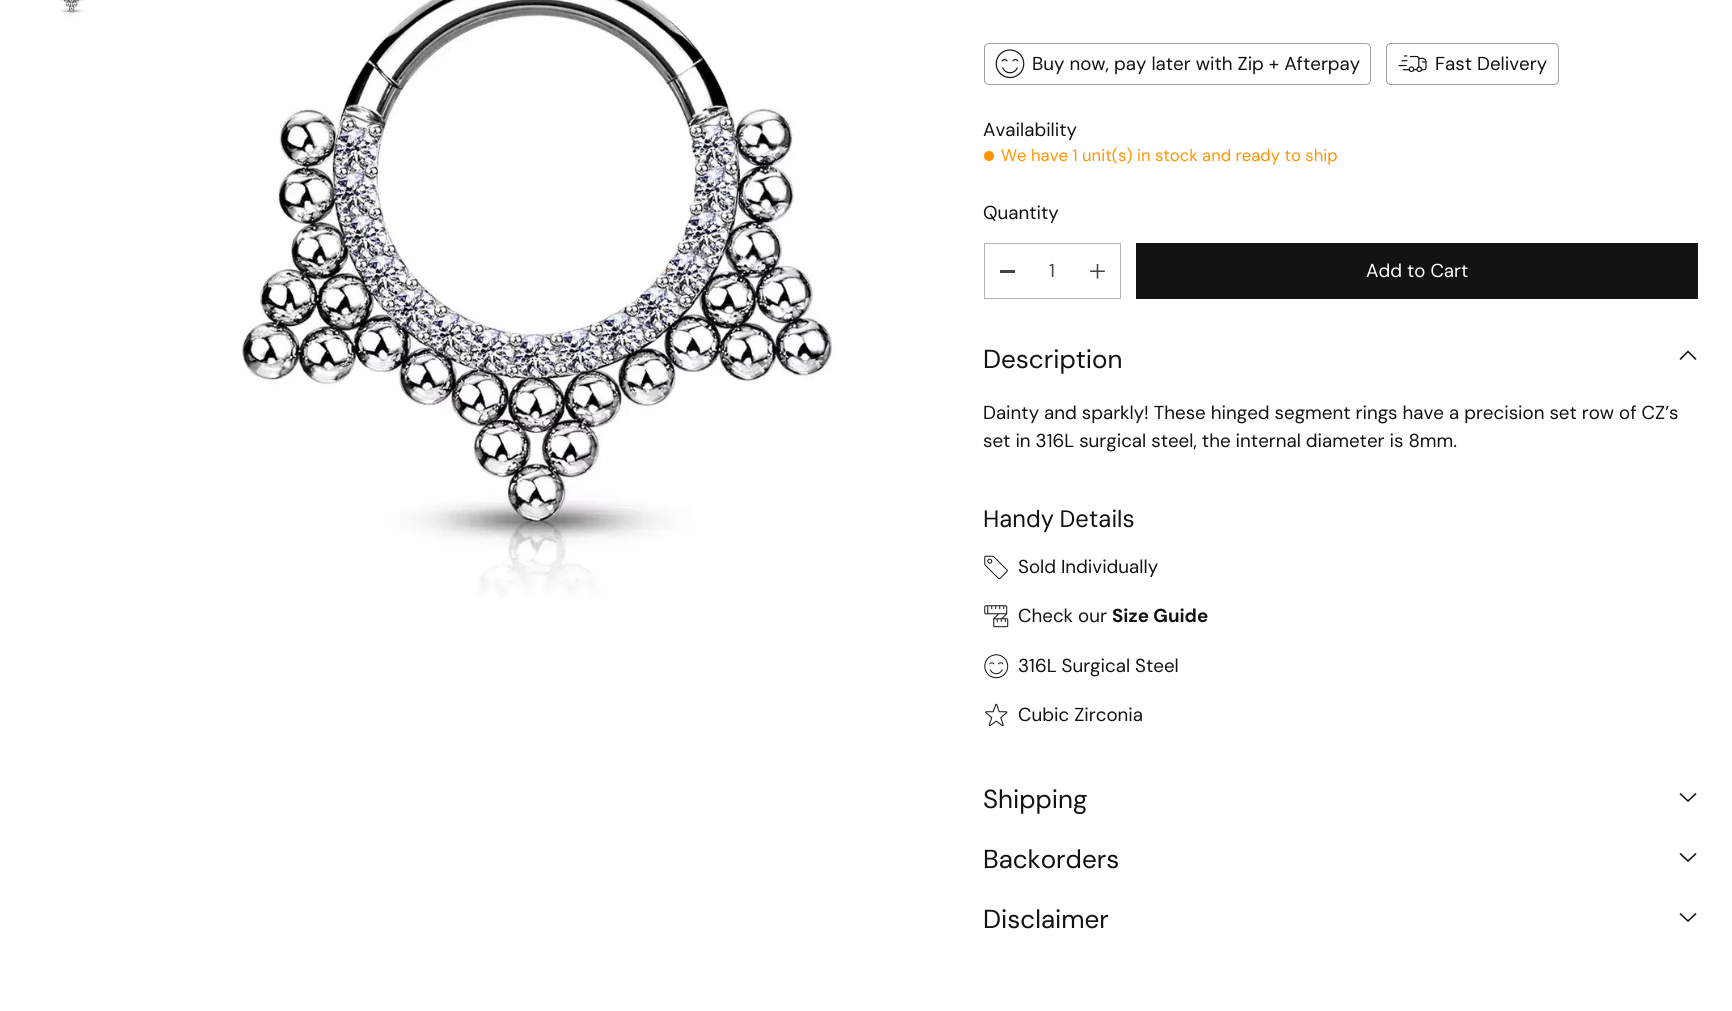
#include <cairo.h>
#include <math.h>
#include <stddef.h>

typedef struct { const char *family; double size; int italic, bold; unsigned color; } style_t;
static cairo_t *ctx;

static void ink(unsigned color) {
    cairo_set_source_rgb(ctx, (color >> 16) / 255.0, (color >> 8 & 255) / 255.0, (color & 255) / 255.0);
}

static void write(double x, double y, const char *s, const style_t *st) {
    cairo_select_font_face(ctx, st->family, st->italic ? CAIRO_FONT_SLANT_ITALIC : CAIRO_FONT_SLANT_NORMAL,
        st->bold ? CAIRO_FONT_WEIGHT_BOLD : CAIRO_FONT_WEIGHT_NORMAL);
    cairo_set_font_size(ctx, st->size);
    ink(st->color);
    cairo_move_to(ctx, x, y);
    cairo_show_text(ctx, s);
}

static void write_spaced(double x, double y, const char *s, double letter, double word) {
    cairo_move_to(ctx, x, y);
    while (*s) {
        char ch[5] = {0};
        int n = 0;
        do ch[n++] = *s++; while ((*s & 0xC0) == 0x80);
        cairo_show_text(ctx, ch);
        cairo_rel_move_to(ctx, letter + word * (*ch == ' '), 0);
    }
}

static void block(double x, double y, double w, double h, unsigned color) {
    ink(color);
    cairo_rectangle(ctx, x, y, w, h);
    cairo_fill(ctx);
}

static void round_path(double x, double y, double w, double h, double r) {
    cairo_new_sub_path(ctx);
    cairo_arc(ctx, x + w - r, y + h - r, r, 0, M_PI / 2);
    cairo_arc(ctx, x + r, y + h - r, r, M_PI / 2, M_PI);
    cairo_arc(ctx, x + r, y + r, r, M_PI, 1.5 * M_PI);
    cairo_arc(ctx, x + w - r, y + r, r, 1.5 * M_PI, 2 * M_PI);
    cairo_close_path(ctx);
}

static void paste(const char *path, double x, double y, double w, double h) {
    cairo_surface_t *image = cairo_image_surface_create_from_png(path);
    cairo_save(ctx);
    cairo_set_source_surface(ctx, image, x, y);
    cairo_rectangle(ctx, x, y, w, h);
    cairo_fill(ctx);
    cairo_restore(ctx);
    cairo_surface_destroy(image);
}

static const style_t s1 = {"DM Sans", 18.75, 0, 0, 0x121212};
static const style_t s2 = {"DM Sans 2", 16.65, 0, 0, 0xff9400};
static const style_t s3 = {"DM Sans", 18.75, 0, 0, 0x444444};
static const style_t s4 = {"DM Sans", 18.75, 0, 0, 0xffffff};
static const style_t s5 = {"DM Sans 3", 26, 0, 0, 0x121212};
static const style_t s6 = {"DM Sans", 18.75, 0, 1, 0x121212};

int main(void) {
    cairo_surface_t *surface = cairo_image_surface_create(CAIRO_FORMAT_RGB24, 1732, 1011);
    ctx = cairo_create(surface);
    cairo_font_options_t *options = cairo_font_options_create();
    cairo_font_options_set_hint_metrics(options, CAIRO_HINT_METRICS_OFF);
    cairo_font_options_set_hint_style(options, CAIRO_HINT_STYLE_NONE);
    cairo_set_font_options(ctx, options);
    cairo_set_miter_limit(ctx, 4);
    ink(0xffffff);
    cairo_paint(ctx);
    paste("pic1.png", 59, 0, 26, 18);
    paste("pic2.png", 242, 0, 592, 598);
    round_path(984.5, 43.5, 386, 41, 4.5);
    ink(0xa0a0a0);
    cairo_set_line_width(ctx, 1);
    cairo_stroke(ctx);
    paste("pic3.png", 995, 49, 30, 30);
    write(1032, 70, "Buy now, pay later with Zip + Afterpay", &s1);
    round_path(1386.5, 43.5, 172, 41, 4.5);
    ink(0xa0a0a0);
    cairo_stroke(ctx);
    paste("pic4.png", 1398, 55, 29, 18);
    write(1435, 70, "Fast Delivery", &s1);
    write(983, 136, "Availability", &s1);
    ink(0xff9400);
    cairo_new_path(ctx);
    cairo_arc(ctx, 989, 156, 5, 0, 2 * M_PI);
    cairo_fill(ctx);
    write(1001, 161, "We have 1 unit(s) in stock and ready to ship", &s2);
    write(983, 219, "Quantity", &s1);
    cairo_rectangle(ctx, 984.5, 243.5, 136, 55);
    ink(0xb4b4b4);
    cairo_stroke(ctx);
    block(1000, 270, 15, 3, 0x444444);
    write(1049, 277, "1", &s3);
    paste("pic5.png", 1090, 264, 15, 15);
    block(1136, 243, 562, 56, 0x121212);
    write(1366, 277, "Add to Cart", &s4);
    write(983, 368, "Description", &s5);
    cairo_new_path(ctx);
    cairo_move_to(ctx, 1680, 359.5);
    cairo_line_to(ctx, 1688, 351.5);
    cairo_line_to(ctx, 1696, 359.5);
    cairo_set_line_width(ctx, 1.6);
    cairo_stroke(ctx);
    write(983, 419, "Dainty and sparkly! These hinged segment rings have a precision set row of CZ’s", &s1);
    write(983, 447, "set in 316L surgical steel, the internal diameter is 8mm.", &s1);
    cairo_select_font_face(ctx, "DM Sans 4", CAIRO_FONT_SLANT_NORMAL, CAIRO_FONT_WEIGHT_NORMAL);
    cairo_set_font_size(ctx, 23.75);
    write_spaced(983, 527, "Handy Details", 0, -1);
    paste("pic6.png", 984, 555, 24, 25);
    write(1018, 573, "Sold Individually", &s1);
    paste("pic7.png", 984, 605, 25, 23);
    write(1018, 622, "Check our", &s1);
    write(1112, 622, "Size Guide", &s6);
    paste("pic8.png", 984, 654, 25, 25);
    write(1018, 672, "316L Surgical Steel", &s1);
    paste("pic9.png", 985, 703, 23, 24);
    write(1018, 721, "Cubic Zirconia", &s1);
    write(983, 808, "Shipping", &s5);
    cairo_new_path(ctx);
    cairo_move_to(ctx, 1680, 793.5);
    cairo_line_to(ctx, 1688, 801);
    cairo_line_to(ctx, 1696, 793.5);
    cairo_stroke(ctx);
    write(983, 868, "Backorders", &s5);
    cairo_new_path(ctx);
    cairo_move_to(ctx, 1680, 853.5);
    cairo_line_to(ctx, 1688, 861);
    cairo_line_to(ctx, 1696, 853.5);
    cairo_stroke(ctx);
    write(983, 928, "Disclaimer", &s5);
    cairo_new_path(ctx);
    cairo_move_to(ctx, 1680, 913.5);
    cairo_line_to(ctx, 1688, 921);
    cairo_line_to(ctx, 1696, 913.5);
    cairo_stroke(ctx);
    cairo_surface_write_to_png(surface, "screenshot.png");
    cairo_font_options_destroy(options);
    cairo_destroy(ctx);
    cairo_surface_destroy(surface);
    return 0;
}
